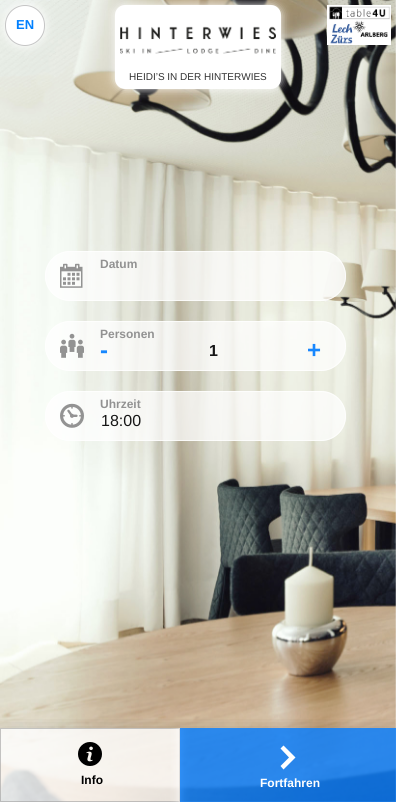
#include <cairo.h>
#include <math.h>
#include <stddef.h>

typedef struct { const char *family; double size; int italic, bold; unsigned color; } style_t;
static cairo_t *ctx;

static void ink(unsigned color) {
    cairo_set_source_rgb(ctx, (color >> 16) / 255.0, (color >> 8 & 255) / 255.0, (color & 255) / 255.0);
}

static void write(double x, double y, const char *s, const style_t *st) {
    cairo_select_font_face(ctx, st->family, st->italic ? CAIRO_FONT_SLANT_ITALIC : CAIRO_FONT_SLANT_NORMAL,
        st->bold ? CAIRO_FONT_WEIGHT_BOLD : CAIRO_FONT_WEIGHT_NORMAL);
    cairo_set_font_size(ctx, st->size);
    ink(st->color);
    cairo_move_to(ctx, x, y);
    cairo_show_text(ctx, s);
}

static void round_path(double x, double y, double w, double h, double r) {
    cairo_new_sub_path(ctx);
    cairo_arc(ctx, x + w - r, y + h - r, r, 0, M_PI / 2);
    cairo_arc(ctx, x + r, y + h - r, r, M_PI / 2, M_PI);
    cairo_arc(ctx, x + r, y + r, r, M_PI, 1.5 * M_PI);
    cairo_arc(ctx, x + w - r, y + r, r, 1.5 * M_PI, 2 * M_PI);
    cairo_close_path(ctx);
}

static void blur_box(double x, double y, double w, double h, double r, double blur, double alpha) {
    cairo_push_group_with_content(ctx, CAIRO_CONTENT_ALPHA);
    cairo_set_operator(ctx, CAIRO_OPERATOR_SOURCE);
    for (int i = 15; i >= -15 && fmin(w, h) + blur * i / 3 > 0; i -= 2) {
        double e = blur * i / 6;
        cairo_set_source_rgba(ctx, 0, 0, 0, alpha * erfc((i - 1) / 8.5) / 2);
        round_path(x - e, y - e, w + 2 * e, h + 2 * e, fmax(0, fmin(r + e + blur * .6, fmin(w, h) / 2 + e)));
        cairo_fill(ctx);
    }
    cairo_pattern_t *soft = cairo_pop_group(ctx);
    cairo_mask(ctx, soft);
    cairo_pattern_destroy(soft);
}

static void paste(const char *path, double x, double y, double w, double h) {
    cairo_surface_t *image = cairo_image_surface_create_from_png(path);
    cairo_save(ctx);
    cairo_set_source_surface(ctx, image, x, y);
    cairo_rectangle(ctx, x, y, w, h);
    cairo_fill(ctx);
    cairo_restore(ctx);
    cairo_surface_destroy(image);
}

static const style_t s1 = {"Liberation Sans", 13, 0, 1, 0x0080ff};
static const style_t s2 = {"Liberation Sans", 12, 0, 1, 0x929292};
static const style_t s3 = {"Liberation Sans", 16, 0, 1, 0x161616};
static const style_t s4 = {"Liberation Sans", 24, 0, 1, 0x1787fe};
static const style_t s5 = {"Liberation Sans", 16, 0, 0, 0x161616};
static const style_t s6 = {"Liberation Sans", 12, 0, 1, 0x000000};
static const style_t s7 = {"Liberation Sans", 12, 0, 1, 0xffffff};
static const style_t s8 = {"Liberation Sans", 10, 0, 0, 0x333333};

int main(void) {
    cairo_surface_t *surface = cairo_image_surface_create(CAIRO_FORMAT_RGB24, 396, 802);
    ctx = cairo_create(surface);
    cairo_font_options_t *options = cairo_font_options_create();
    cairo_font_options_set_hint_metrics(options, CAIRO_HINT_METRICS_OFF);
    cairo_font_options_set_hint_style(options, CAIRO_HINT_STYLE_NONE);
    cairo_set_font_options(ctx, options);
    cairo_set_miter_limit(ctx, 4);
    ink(0xf7f7f7);
    cairo_paint(ctx);
    paste("pic1.png", 0, 0, 396, 802);
    ink(0xffffff);
    blur_box(5, 5, 40, 41, 20, 5, 1);
    ink(0xffffff);
    round_path(5, 5, 40, 41, 20);
    cairo_fill(ctx);
    round_path(5.5, 5.5, 39, 40, 19.5);
    cairo_set_source_rgba(ctx, 0.549, 0.549, 0.549, 0.5);
    cairo_set_line_width(ctx, 1);
    cairo_stroke(ctx);
    write(16, 29, "EN", &s1);
    paste("pic2.png", 327, 5, 64, 40);
    cairo_set_source_rgba(ctx, 1, 1, 1, 0.73);
    round_path(45, 251, 301, 50, 25);
    cairo_fill(ctx);
    round_path(45.5, 251.5, 300, 49, 24.5);
    cairo_stroke(ctx);
    paste("pic3.png", 60, 263, 23, 25);
    write(100, 268, "Datum", &s2);
    cairo_set_source_rgba(ctx, 1, 1, 1, 0.73);
    round_path(45, 321, 301, 50, 25);
    cairo_fill(ctx);
    round_path(45.5, 321.5, 300, 49, 24.5);
    cairo_stroke(ctx);
    paste("pic4.png", 60, 333, 24, 25);
    write(100, 338, "Personen", &s2);
    write(209, 356, "1", &s3);
    write(307, 358, "+", &s4);
    write(100, 358, "-", &s4);
    cairo_set_source_rgba(ctx, 1, 1, 1, 0.73);
    round_path(45, 391, 301, 50, 25);
    cairo_fill(ctx);
    round_path(45.5, 391.5, 300, 49, 24.5);
    cairo_stroke(ctx);
    paste("pic5.png", 60, 403, 24, 25);
    write(100, 408, "Uhrzeit", &s2);
    write(101, 426, "18:00", &s5);
    cairo_save(ctx);
    cairo_rectangle(ctx, 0, 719, 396, 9);
    cairo_clip(ctx);
    ink(0x000000);
    blur_box(0, 736, 396, 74, 0, 12, 0.25);
    cairo_restore(ctx);
    cairo_rectangle(ctx, 0.5, 728.5, 395, 73);
    cairo_set_source_rgba(ctx, 1, 1, 1, 0.08);
    cairo_stroke(ctx);
    cairo_save(ctx);
    cairo_rectangle(ctx, 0, 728, 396, 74);
    cairo_clip(ctx);
    cairo_rectangle(ctx, 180, 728, 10, 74);
    cairo_clip(ctx);
    ink(0xffffff);
    blur_box(0, 728, 180, 74, 0, 5, 1);
    cairo_restore(ctx);
    cairo_set_source_rgba(ctx, 1, 1, 1, 0.8);
    cairo_rectangle(ctx, 0, 728, 180, 74);
    cairo_fill(ctx);
    cairo_rectangle(ctx, 0.5, 728.5, 179, 73);
    cairo_set_source_rgba(ctx, 0.549, 0.549, 0.549, 0.5);
    cairo_stroke(ctx);
    paste("pic6.png", 78, 742, 24, 24);
    write(81, 784, "Info", &s6);
    cairo_save(ctx);
    cairo_rectangle(ctx, 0, 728, 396, 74);
    cairo_clip(ctx);
    cairo_rectangle(ctx, 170, 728, 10, 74);
    cairo_clip(ctx);
    ink(0xffffff);
    blur_box(180, 728, 216, 74, 0, 5, 1);
    cairo_restore(ctx);
    cairo_set_source_rgba(ctx, 0, 0.482, 1, 0.8);
    cairo_rectangle(ctx, 180, 728, 216, 74);
    cairo_fill(ctx);
    ink(0xffffff);
    cairo_new_path(ctx);
    cairo_move_to(ctx, 283.5, 769.5);
    cairo_line_to(ctx, 280.5, 766);
    cairo_line_to(ctx, 289, 757.5);
    cairo_line_to(ctx, 280.5, 748.5);
    cairo_line_to(ctx, 283.5, 745.5);
    cairo_line_to(ctx, 295.5, 757.5);
    cairo_close_path(ctx);
    cairo_fill(ctx);
    write(260, 787, "Fortfahren", &s7);
    ink(0xffffff);
    blur_box(115, 5, 166, 84, 10, 5, 1);
    ink(0xffffff);
    round_path(115, 5, 166, 84, 10);
    cairo_fill(ctx);
    paste("pic7.png", 120, 26, 156, 28);
    write(129, 80, "HEIDI’S IN DER HINTERWIES", &s8);
    cairo_surface_write_to_png(surface, "screenshot.png");
    cairo_font_options_destroy(options);
    cairo_destroy(ctx);
    cairo_surface_destroy(surface);
    return 0;
}
